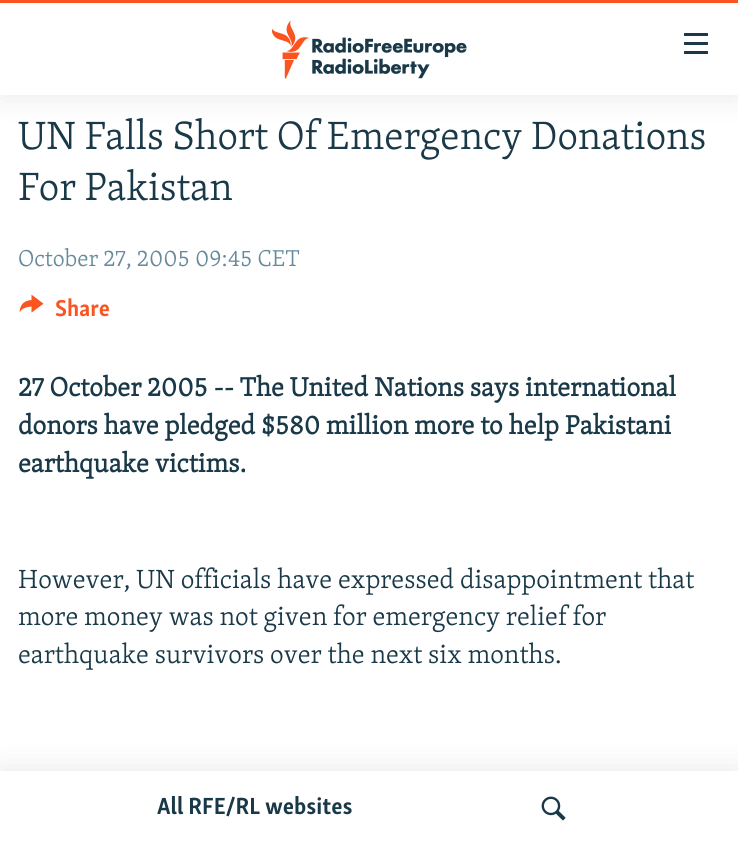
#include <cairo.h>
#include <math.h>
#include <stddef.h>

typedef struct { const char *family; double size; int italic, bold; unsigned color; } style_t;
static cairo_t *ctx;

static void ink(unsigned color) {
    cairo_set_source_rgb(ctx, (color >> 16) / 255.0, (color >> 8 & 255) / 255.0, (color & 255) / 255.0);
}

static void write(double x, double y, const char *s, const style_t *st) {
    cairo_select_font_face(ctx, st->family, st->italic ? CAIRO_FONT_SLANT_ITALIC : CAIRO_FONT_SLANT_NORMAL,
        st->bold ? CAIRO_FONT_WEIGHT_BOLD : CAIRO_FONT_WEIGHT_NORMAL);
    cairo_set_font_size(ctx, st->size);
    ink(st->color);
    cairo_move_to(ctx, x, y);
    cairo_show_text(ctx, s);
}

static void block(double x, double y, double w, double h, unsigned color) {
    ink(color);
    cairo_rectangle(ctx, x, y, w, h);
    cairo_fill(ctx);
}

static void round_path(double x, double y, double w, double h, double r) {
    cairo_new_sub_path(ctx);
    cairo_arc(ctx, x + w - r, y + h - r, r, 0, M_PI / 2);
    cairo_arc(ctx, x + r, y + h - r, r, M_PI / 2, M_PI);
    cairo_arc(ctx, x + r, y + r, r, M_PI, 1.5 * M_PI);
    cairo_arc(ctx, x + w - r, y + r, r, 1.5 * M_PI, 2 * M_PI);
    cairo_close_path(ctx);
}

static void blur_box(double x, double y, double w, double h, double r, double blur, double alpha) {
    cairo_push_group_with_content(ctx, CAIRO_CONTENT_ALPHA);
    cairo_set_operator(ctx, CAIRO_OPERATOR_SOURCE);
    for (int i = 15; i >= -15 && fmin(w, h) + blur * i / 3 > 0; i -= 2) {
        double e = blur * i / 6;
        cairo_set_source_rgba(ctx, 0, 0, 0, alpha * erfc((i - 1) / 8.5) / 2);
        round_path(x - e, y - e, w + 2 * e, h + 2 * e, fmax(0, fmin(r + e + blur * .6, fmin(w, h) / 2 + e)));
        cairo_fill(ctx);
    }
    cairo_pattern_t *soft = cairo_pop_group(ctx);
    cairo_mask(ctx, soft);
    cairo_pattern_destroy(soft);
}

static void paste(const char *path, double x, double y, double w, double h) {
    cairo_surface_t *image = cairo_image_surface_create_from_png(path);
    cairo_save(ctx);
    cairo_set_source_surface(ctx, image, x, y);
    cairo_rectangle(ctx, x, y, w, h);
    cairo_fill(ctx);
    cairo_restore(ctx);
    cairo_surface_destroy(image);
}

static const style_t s1 = {"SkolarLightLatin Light", 40.5, 0, 0, 0x1a3948};
static const style_t s2 = {"SkolarLightLatin Light", 23.6, 0, 0, 0x678a9b};
static const style_t s3 = {"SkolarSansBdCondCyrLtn", 23.6, 0, 1, 0xfa5420};
static const style_t s4 = {"SkolarLightLatin", 27, 0, 1, 0x1a3948};
static const style_t s5 = {"SkolarLightLatin Light", 27, 0, 0, 0x1a3948};
static const style_t s6 = {"SkolarSansBdCondCyrLtn", 24, 0, 1, 0x1a3948};

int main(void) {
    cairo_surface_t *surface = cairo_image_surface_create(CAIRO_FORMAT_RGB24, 738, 845);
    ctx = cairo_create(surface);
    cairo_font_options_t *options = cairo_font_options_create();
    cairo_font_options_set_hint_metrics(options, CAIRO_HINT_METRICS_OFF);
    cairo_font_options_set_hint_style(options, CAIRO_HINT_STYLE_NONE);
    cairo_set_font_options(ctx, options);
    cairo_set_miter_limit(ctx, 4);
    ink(0xffffff);
    cairo_paint(ctx);
    write(18, 149, "UN Falls Short Of Emergency Donations", &s1);
    write(18, 200, "For Pakistan", &s1);
    write(18, 266, "October 27, 2005 09:45 CET", &s2);
    paste("pic1.png", 19, 294, 25, 19);
    write(55, 316, "Share", &s3);
    write(18, 396, "27 October 2005 -- The United Nations says international", &s4);
    write(18, 434, "donors have pledged $580 million more to help Pakistani", &s4);
    write(18, 472, "earthquake victims.", &s4);
    write(18, 588, "However, UN officials have expressed disappointment that", &s5);
    write(18, 625, "more money was not given for emergency relief for", &s5);
    write(18, 663, "earthquake survivors over the next six months.", &s5);
    ink(0x000000);
    blur_box(0, 0, 738, 95, 0, 15, 0.1);
    block(0, 3, 738, 92, 0xffffff);
    block(0, 0, 738, 3, 0xfa5420);
    paste("pic2.png", 272, 20, 195, 59);
    paste("pic3.png", 684, 33, 24, 21);
    ink(0x000000);
    blur_box(0, 771, 738, 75, 0, 15, 0.1);
    block(0, 771, 738, 74, 0xffffff);
    write(157, 814, "All RFE/RL websites", &s6);
    paste("pic4.png", 541, 796, 25, 25);
    cairo_surface_write_to_png(surface, "screenshot.png");
    cairo_font_options_destroy(options);
    cairo_destroy(ctx);
    cairo_surface_destroy(surface);
    return 0;
}
